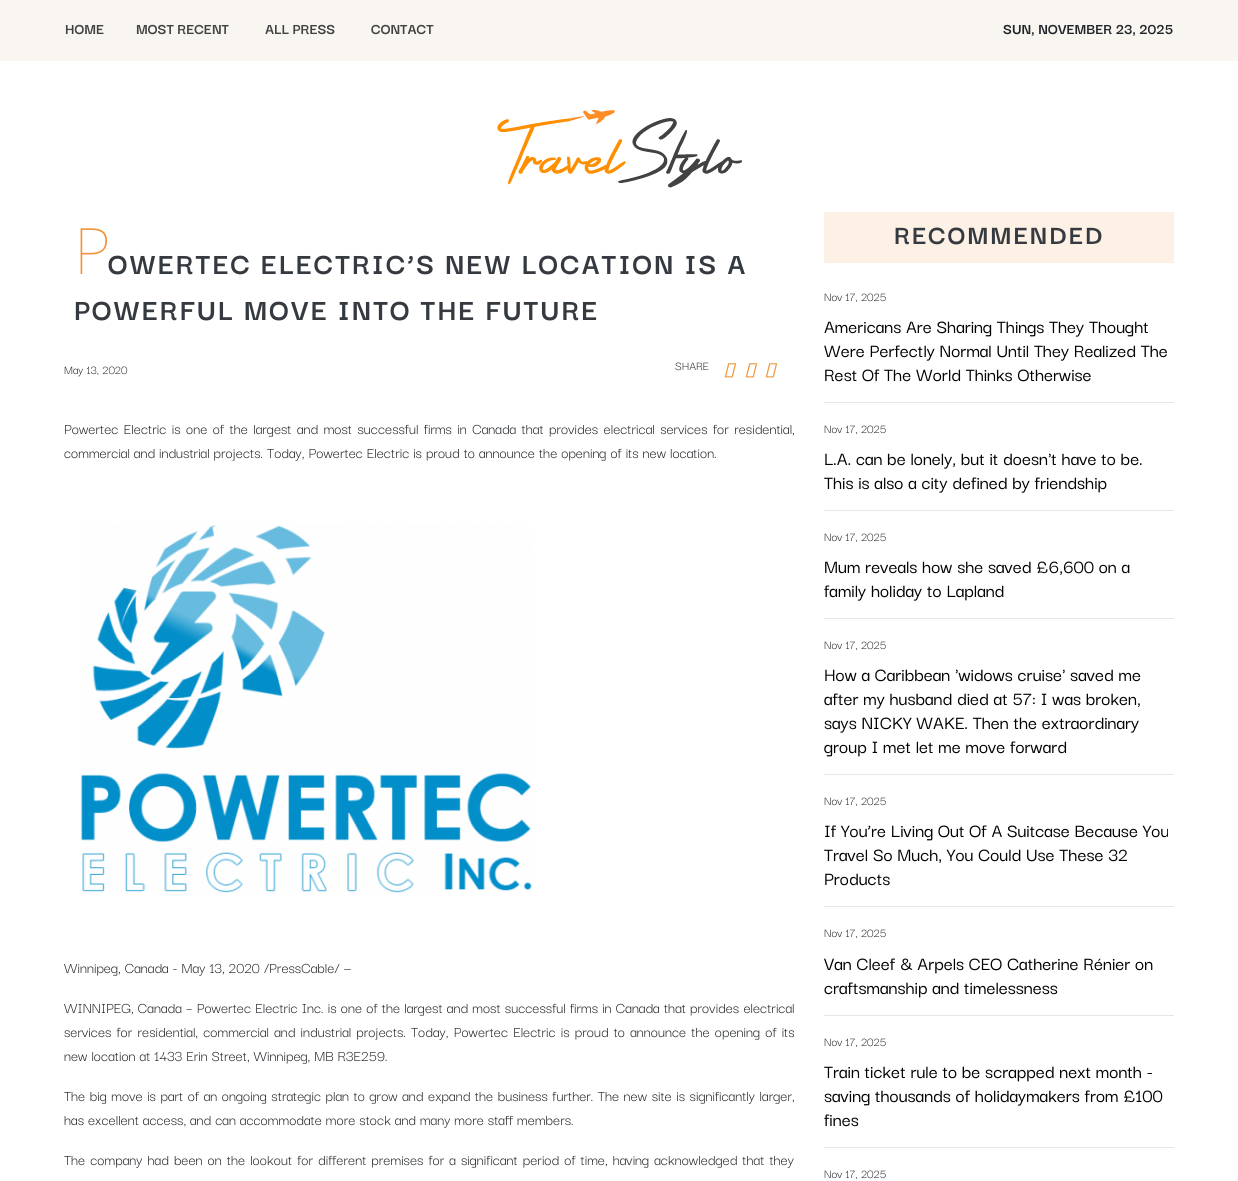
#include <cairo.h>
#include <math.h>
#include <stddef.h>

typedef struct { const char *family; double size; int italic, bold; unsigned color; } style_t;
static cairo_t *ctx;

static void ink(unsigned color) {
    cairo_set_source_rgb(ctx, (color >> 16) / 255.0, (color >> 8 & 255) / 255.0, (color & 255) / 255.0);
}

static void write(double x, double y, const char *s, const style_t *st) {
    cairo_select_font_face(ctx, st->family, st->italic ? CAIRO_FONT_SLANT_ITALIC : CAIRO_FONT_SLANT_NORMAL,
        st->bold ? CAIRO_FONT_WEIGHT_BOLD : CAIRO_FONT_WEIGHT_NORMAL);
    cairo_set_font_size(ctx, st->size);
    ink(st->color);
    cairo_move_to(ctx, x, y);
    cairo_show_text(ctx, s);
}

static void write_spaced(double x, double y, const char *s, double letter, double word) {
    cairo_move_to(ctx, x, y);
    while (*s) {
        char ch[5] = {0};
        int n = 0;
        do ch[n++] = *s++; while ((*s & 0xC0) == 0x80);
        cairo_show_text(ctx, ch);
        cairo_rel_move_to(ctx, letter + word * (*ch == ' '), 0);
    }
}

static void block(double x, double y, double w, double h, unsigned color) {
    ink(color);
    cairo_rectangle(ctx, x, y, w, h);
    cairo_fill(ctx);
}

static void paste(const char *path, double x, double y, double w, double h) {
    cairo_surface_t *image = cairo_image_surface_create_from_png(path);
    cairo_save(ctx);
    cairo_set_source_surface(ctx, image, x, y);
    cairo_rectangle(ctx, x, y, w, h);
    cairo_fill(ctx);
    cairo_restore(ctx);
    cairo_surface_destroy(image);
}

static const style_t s1 = {"Darker Grotesque", 16, 0, 1, 0x424242};
static const style_t s2 = {"Darker Grotesque", 16, 0, 1, 0x212529};
static const style_t s3 = {"Darker Grotesque", 13, 0, 0, 0x212529};
static const style_t s4 = {"Darker Grotesque", 16, 0, 0, 0x212529};
static const style_t s5 = {"Darker Grotesque Medium", 20, 0, 0, 0x000000};

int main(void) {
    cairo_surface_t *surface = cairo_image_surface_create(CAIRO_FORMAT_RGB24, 1238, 1181);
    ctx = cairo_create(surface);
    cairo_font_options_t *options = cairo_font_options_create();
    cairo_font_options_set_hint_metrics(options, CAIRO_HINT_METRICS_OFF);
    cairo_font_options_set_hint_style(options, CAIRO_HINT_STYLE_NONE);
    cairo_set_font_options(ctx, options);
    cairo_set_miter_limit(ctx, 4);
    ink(0xffffff);
    cairo_paint(ctx);
    block(0, 0, 1238, 61, 0xf9f6f2);
    write(65, 34, "HOME", &s1);
    write(136, 34, "MOST RECENT", &s1);
    write(265, 34, "ALL PRESS", &s1);
    write(371, 34, "CONTACT", &s1);
    write(1003, 34, "SUN, NOVEMBER 23, 2025", &s2);
    paste("pic1.png", 497, 109, 245, 79);
    cairo_select_font_face(ctx, "Noto Sans Thin", CAIRO_FONT_SLANT_NORMAL, CAIRO_FONT_WEIGHT_NORMAL);
    cairo_set_font_size(ctx, 64);
    ink(0xef9337);
    write_spaced(74, 274, "P", 2, 0);
    cairo_select_font_face(ctx, "Darker Grotesque", CAIRO_FONT_SLANT_NORMAL, CAIRO_FONT_WEIGHT_BOLD);
    cairo_set_font_size(ctx, 32);
    ink(0x343a40);
    write_spaced(108, 274, "OWERTEC ELECTRIC’S NEW LOCATION IS A", 2, 0);
    write_spaced(74, 320, "POWERFUL MOVE INTO THE FUTURE", 2, 0);
    write(64, 374, "May 13, 2020", &s3);
    write(675, 370, "SHARE", &s3);
    paste("pic2.png", 724, 363, 13, 15);
    paste("pic2.png", 745, 363, 13, 15);
    paste("pic2.png", 765, 363, 13, 15);
    cairo_set_font_size(ctx, 16);
    write_spaced(64, 434, "Powertec Electric is one of the largest and most successful firms in Canada that provides electrical services for residential,", 0, 1.5);
    write(64, 458, "commercial and industrial projects. Today, Powertec Electric is proud to announce the opening of its new location.", &s4);
    paste("pic3.png", 80, 524, 452, 369);
    write(64, 973, "Winnipeg, Canada - May 13, 2020 /PressCable/ —", &s4);
    write_spaced(64, 1013, "WINNIPEG, Canada – Powertec Electric Inc. is one of the largest and most successful firms in Canada that provides electrical", 0, 0.25);
    write_spaced(64, 1037, "services for residential, commercial and industrial projects. Today, Powertec Electric is proud to announce the opening of its", 0, 1.2);
    write(64, 1061, "new location at 1433 Erin Street, Winnipeg, MB R3E259.", &s4);
    write_spaced(64, 1101, "The big move is part of an ongoing strategic plan to grow and expand the business further. The new site is significantly larger,", 0, 0.6);
    write(64, 1125, "has excellent access, and can accommodate more stock and many more staff members.", &s4);
    write_spaced(64, 1165, "The company had been on the lookout for different premises for a significant period of time, having acknowledged that they", 0, 1.1);
    block(824, 212, 350, 51, 0xfdf1e5);
    cairo_select_font_face(ctx, "Darker Grotesque", CAIRO_FONT_SLANT_NORMAL, CAIRO_FONT_WEIGHT_BOLD);
    cairo_set_font_size(ctx, 28.75);
    ink(0x343a40);
    write_spaced(894, 244, "RECOMMENDED", 2, 0);
    write(824, 301, "Nov 17, 2025", &s3);
    write(824, 333, "Americans Are Sharing Things They Thought", &s5);
    write(824, 357, "Were Perfectly Normal Until They Realized The", &s5);
    write(824, 381, "Rest Of The World Thinks Otherwise", &s5);
    block(824, 402, 350, 1, 0xe6e6e6);
    write(824, 433, "Nov 17, 2025", &s3);
    write(824, 465, "L.A. can be lonely, but it doesn't have to be.", &s5);
    write(824, 489, "This is also a city defined by friendship", &s5);
    block(824, 510, 350, 1, 0xe6e6e6);
    write(824, 541, "Nov 17, 2025", &s3);
    write(824, 573, "Mum reveals how she saved £6,600 on a", &s5);
    write(824, 597, "family holiday to Lapland", &s5);
    block(824, 618, 350, 1, 0xe6e6e6);
    write(824, 649, "Nov 17, 2025", &s3);
    write(824, 681, "How a Caribbean 'widows cruise' saved me", &s5);
    write(824, 705, "after my husband died at 57: I was broken,", &s5);
    write(824, 729, "says NICKY WAKE. Then the extraordinary", &s5);
    write(824, 753, "group I met let me move forward", &s5);
    block(824, 774, 350, 1, 0xe6e6e6);
    write(824, 805, "Nov 17, 2025", &s3);
    write(824, 837, "If You’re Living Out Of A Suitcase Because You", &s5);
    write(824, 861, "Travel So Much, You Could Use These 32", &s5);
    write(824, 885, "Products", &s5);
    block(824, 906, 350, 1, 0xe6e6e6);
    write(824, 937, "Nov 17, 2025", &s3);
    write(824, 970, "Van Cleef & Arpels CEO Catherine Rénier on", &s5);
    write(824, 994, "craftsmanship and timelessness", &s5);
    block(824, 1015, 350, 1, 0xe6e6e6);
    write(824, 1046, "Nov 17, 2025", &s3);
    write(824, 1078, "Train ticket rule to be scrapped next month -", &s5);
    write(824, 1102, "saving thousands of holidaymakers from £100", &s5);
    write(824, 1126, "fines", &s5);
    block(824, 1147, 350, 1, 0xe6e6e6);
    write(824, 1178, "Nov 17, 2025", &s3);
    cairo_surface_write_to_png(surface, "screenshot.png");
    cairo_font_options_destroy(options);
    cairo_destroy(ctx);
    cairo_surface_destroy(surface);
    return 0;
}
